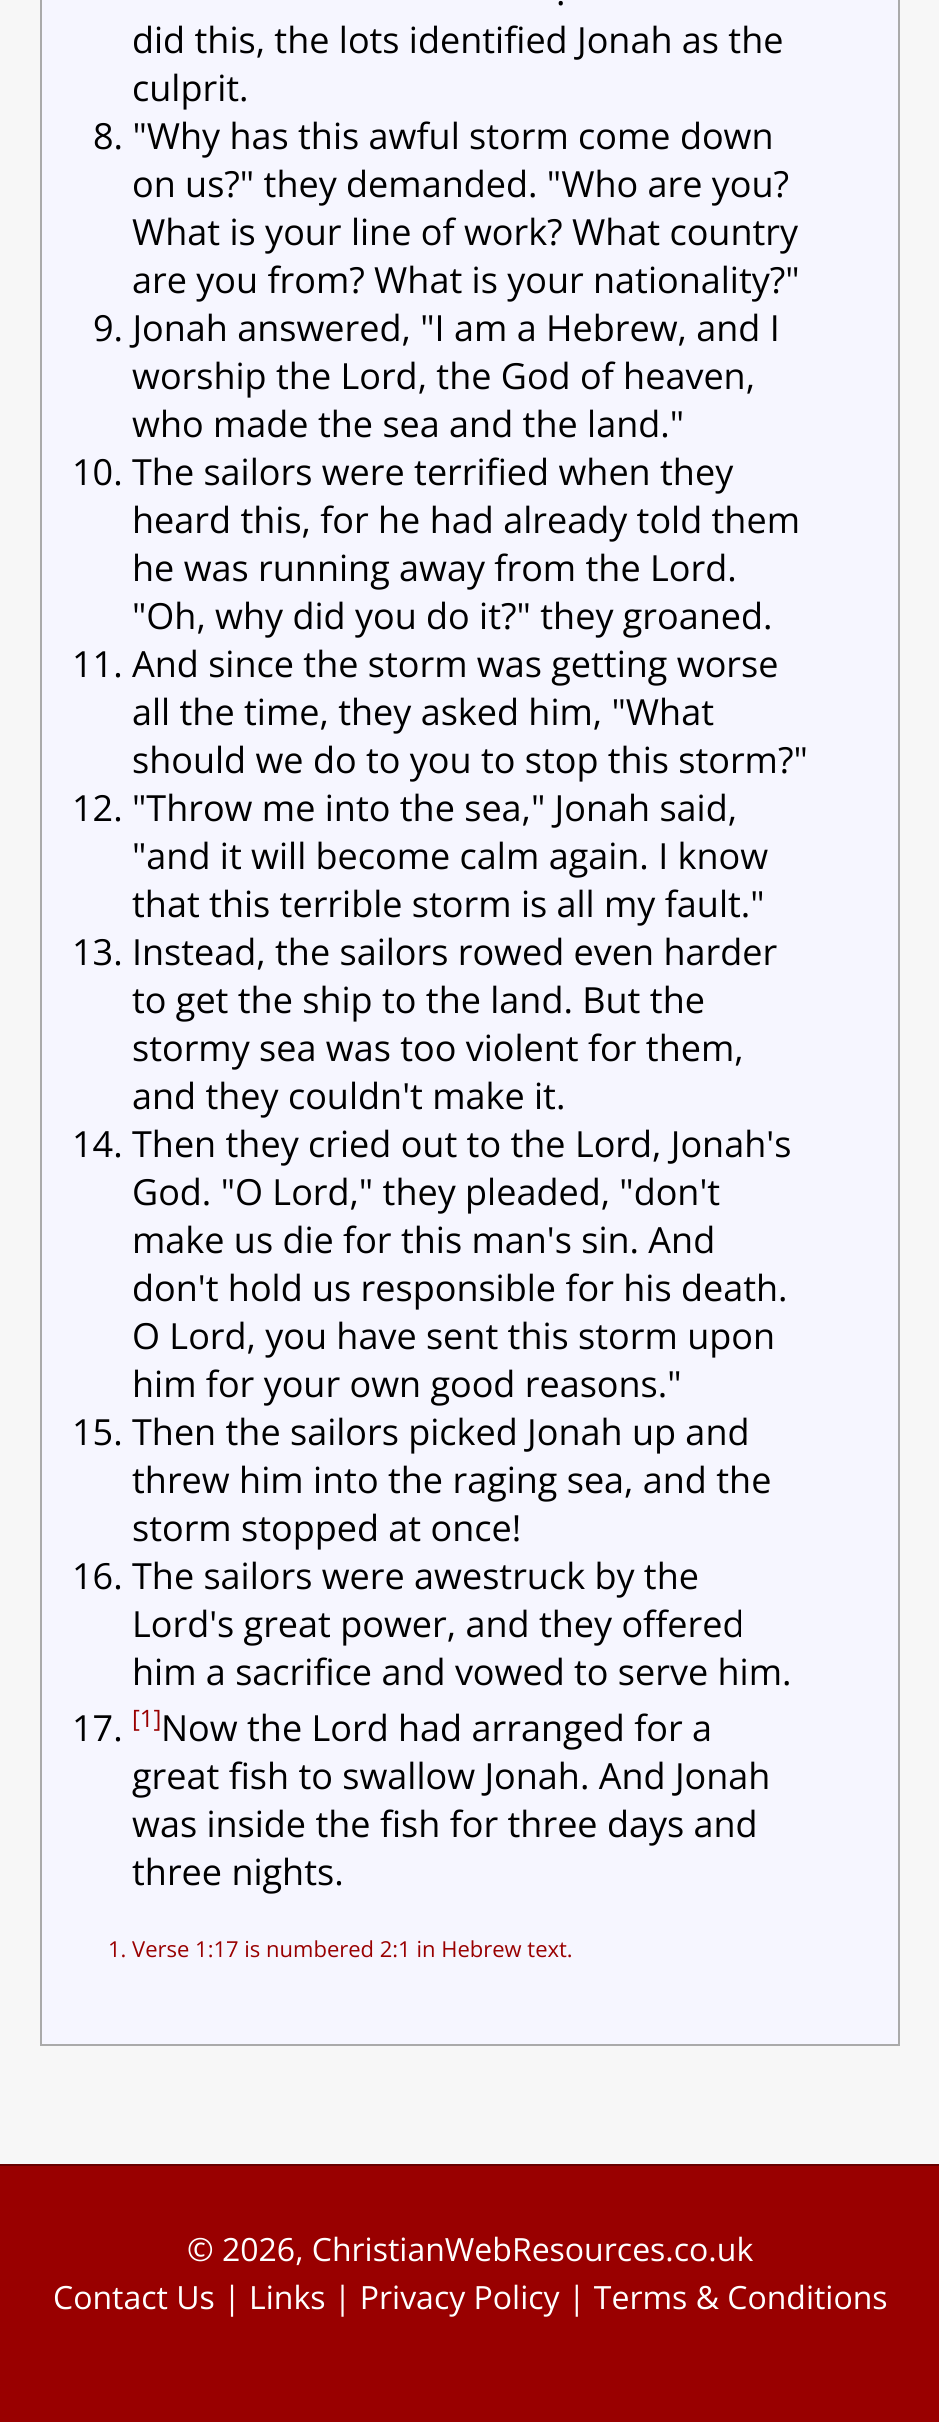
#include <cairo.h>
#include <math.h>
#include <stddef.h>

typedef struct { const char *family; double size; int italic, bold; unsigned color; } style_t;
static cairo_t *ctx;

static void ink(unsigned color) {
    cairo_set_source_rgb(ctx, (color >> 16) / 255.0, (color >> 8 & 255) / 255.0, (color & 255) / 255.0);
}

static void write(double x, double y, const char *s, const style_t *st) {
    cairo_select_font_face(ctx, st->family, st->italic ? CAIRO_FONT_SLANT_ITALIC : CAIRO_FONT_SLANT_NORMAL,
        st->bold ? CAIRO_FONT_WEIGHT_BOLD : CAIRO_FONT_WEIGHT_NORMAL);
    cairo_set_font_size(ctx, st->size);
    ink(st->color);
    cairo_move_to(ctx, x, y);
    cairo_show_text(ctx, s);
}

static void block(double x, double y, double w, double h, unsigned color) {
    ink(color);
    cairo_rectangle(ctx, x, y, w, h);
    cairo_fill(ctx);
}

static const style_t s1 = {"Open Sans", 36, 0, 0, 0x000000};
static const style_t s2 = {"Open Sans", 24, 0, 0, 0x990000};
static const style_t s3 = {"Open Sans", 22, 0, 0, 0x990000};
static const style_t s4 = {"Open Sans", 32, 0, 0, 0xffffff};

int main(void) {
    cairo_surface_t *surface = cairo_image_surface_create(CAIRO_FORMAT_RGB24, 939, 2422);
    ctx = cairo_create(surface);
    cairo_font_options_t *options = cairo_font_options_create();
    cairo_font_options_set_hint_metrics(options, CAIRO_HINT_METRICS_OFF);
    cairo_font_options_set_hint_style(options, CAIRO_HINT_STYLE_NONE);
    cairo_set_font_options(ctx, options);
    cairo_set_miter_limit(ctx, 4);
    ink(0xf7f7f7);
    cairo_paint(ctx);
    ink(0xf6f6ff);
    cairo_rectangle(ctx, 41, -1, 858, 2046);
    cairo_fill_preserve(ctx);
    ink(0xaaaaaa);
    cairo_stroke(ctx);
    write(556, 5, ".", &s1);
    write(132, 53, "did this, the lots identified Jonah as the", &s1);
    write(132, 101, "culprit.", &s1);
    write(93, 149, "8. \"Why has this awful storm come down", &s1);
    write(132, 197, "on us?\" they demanded. \"Who are you?", &s1);
    write(132, 245, "What is your line of work? What country", &s1);
    write(132, 293, "are you from? What is your nationality?\"", &s1);
    write(93, 341, "9. Jonah answered, \"I am a Hebrew, and I", &s1);
    write(132, 389, "worship the Lord, the God of heaven,", &s1);
    write(132, 437, "who made the sea and the land.\"", &s1);
    write(72, 485, "10. The sailors were terrified when they", &s1);
    write(132, 533, "heard this, for he had already told them", &s1);
    write(132, 581, "he was running away from the Lord.", &s1);
    write(132, 629, "\"Oh, why did you do it?\" they groaned.", &s1);
    write(72, 677, "11. And since the storm was getting worse", &s1);
    write(132, 725, "all the time, they asked him, \"What", &s1);
    write(132, 773, "should we do to you to stop this storm?\"", &s1);
    write(72, 821, "12. \"Throw me into the sea,\" Jonah said,", &s1);
    write(132, 869, "\"and it will become calm again. I know", &s1);
    write(132, 917, "that this terrible storm is all my fault.\"", &s1);
    write(72, 965, "13. Instead, the sailors rowed even harder", &s1);
    write(132, 1013, "to get the ship to the land. But the", &s1);
    write(132, 1061, "stormy sea was too violent for them,", &s1);
    write(132, 1109, "and they couldn't make it.", &s1);
    write(72, 1157, "14. Then they cried out to the Lord, Jonah's", &s1);
    write(132, 1205, "God. \"O Lord,\" they pleaded, \"don't", &s1);
    write(132, 1253, "make us die for this man's sin. And", &s1);
    write(132, 1301, "don't hold us responsible for his death.", &s1);
    write(132, 1349, "O Lord, you have sent this storm upon", &s1);
    write(132, 1397, "him for your own good reasons.\"", &s1);
    write(72, 1445, "15. Then the sailors picked Jonah up and", &s1);
    write(132, 1493, "threw him into the raging sea, and the", &s1);
    write(132, 1541, "storm stopped at once!", &s1);
    write(72, 1589, "16. The sailors were awestruck by the", &s1);
    write(132, 1637, "Lord's great power, and they offered", &s1);
    write(132, 1685, "him a sacrifice and vowed to serve him.", &s1);
    write(72, 1741, "17.", &s1);
    write(132, 1727, "[1]", &s2);
    write(161, 1741, "Now the Lord had arranged for a", &s1);
    write(132, 1789, "great fish to swallow Jonah. And Jonah", &s1);
    write(132, 1837, "was inside the fish for three days and", &s1);
    write(132, 1885, "three nights.", &s1);
    write(108, 1957, "1. Verse 1:17 is numbered 2:1 in Hebrew text.", &s3);
    block(0, 2166, 939, 256, 0x990000);
    block(0, 2164, 939, 2, 0x660000);
    write(187, 2261, "© 2026, ChristianWebResources.co.uk", &s4);
    write(53, 2309, "Contact Us | Links | Privacy Policy | Terms & Conditions", &s4);
    cairo_surface_write_to_png(surface, "screenshot.png");
    cairo_font_options_destroy(options);
    cairo_destroy(ctx);
    cairo_surface_destroy(surface);
    return 0;
}
